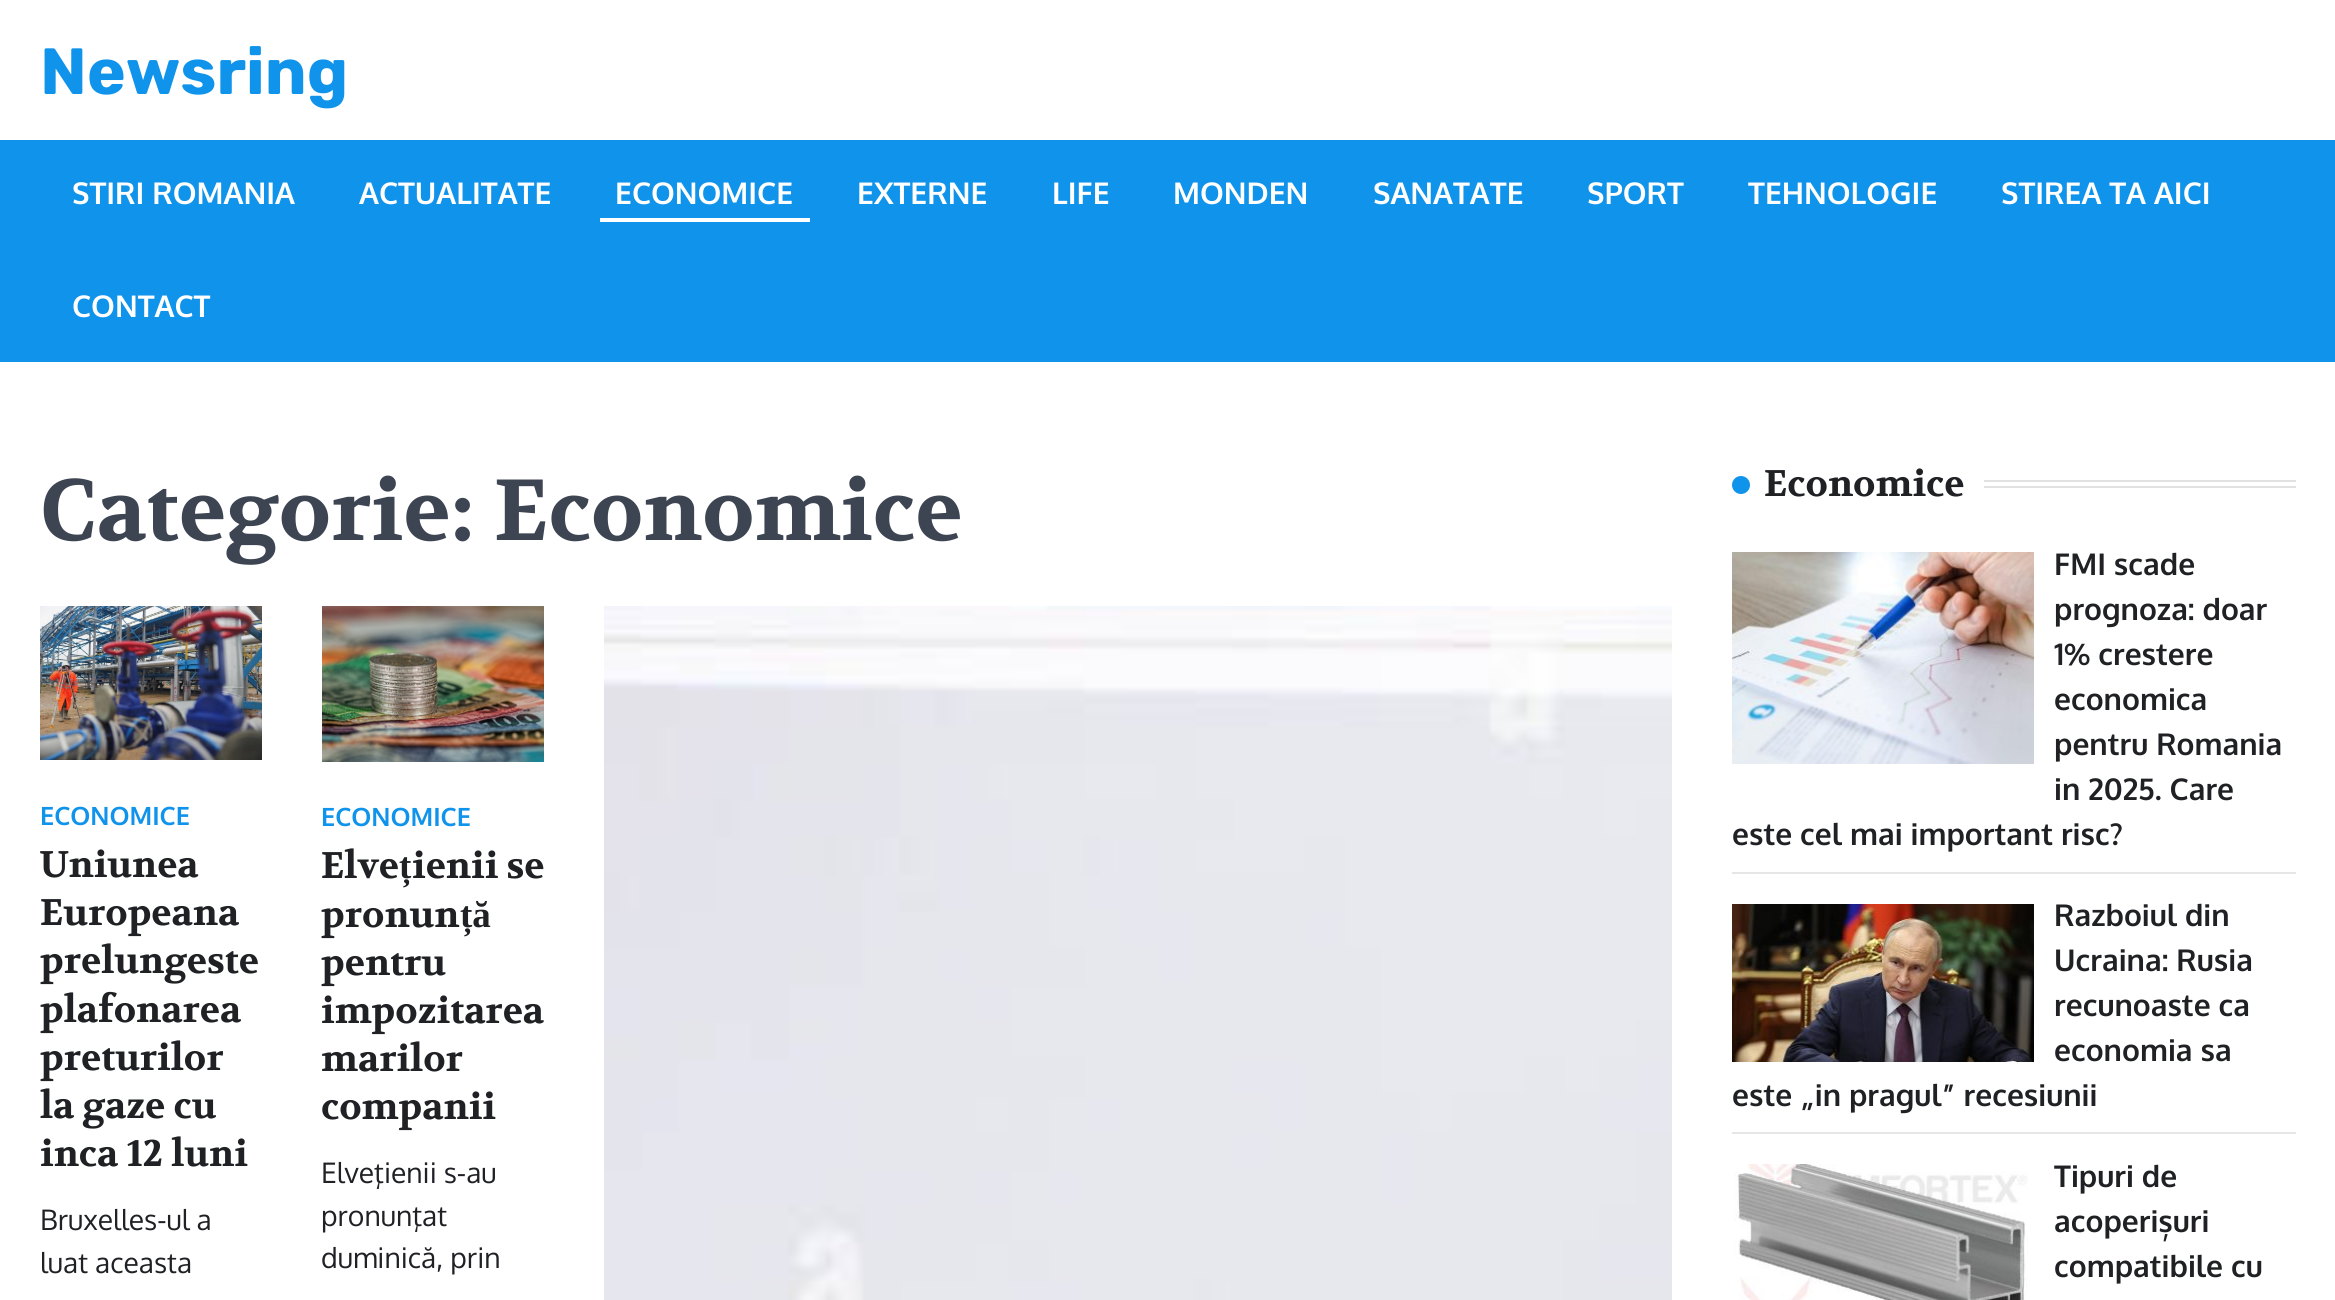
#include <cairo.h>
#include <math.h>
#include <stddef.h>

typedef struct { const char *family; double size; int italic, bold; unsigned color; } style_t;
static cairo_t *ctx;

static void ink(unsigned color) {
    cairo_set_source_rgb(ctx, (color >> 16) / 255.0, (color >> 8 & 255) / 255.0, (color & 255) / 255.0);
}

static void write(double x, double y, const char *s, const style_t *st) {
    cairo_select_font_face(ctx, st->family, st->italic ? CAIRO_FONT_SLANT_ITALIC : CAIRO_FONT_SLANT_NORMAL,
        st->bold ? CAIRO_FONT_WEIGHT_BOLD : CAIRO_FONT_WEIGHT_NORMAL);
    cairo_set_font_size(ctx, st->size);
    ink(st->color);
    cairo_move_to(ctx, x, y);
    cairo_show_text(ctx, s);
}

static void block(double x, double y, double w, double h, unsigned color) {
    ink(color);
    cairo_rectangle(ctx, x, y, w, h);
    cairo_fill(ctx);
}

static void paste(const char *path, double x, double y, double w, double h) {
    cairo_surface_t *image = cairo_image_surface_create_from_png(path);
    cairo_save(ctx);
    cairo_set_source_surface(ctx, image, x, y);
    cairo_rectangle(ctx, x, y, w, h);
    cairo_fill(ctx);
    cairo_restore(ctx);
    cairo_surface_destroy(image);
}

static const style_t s1 = {"Rubik", 65.25, 0, 1, 0x1093ea};
static const style_t s2 = {"Oxygen", 30, 0, 1, 0xffffff};
static const style_t s3 = {"Volkhov", 86.4, 0, 1, 0x3d4452};
static const style_t s4 = {"Oxygen", 25.25, 0, 1, 0x1093ea};
static const style_t s5 = {"Volkhov", 37, 0, 1, 0x202124};
static const style_t s6 = {"Oxygen", 28.25, 0, 0, 0x202124};
static const style_t s7 = {"Liberation Serif", 37, 0, 1, 0x202124};
static const style_t s8 = {"Oxygen", 30, 0, 1, 0x202124};

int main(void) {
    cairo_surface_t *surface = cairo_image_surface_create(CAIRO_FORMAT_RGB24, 2335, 1300);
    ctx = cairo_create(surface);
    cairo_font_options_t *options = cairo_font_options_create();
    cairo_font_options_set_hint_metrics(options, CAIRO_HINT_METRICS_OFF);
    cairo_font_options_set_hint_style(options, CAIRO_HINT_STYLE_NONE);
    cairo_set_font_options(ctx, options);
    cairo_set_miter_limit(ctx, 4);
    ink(0xffffff);
    cairo_paint(ctx);
    write(40, 94, "Newsring", &s1);
    block(0, 140, 2335, 222, 0x1093ea);
    write(72, 204, "STIRI ROMANIA", &s2);
    write(359, 204, "ACTUALITATE", &s2);
    block(600, 218, 210, 4, 0xffffff);
    write(615, 204, "ECONOMICE", &s2);
    write(857, 204, "EXTERNE", &s2);
    write(1052, 204, "LIFE", &s2);
    write(1173, 204, "MONDEN", &s2);
    write(1373, 204, "SANATATE", &s2);
    write(1587, 204, "SPORT", &s2);
    write(1748, 204, "TEHNOLOGIE", &s2);
    write(2001, 204, "STIREA TA AICI", &s2);
    write(72, 317, "CONTACT", &s2);
    write(40, 540, "Categorie: Economice", &s3);
    paste("pic1.png", 40, 606, 222, 154);
    write(40, 825, "ECONOMICE", &s4);
    write(40, 877, "Uniunea", &s5);
    write(40, 925, "Europeana", &s5);
    write(40, 973, "prelungeste", &s5);
    write(40, 1022, "plafonarea", &s5);
    write(40, 1070, "preturilor", &s5);
    write(40, 1118, "la gaze cu", &s5);
    write(40, 1166, "inca 12 luni", &s5);
    write(40, 1230, "Bruxelles-ul a", &s6);
    write(40, 1273, "luat aceasta", &s6);
    paste("pic2.png", 322, 606, 222, 156);
    write(321, 826, "ECONOMICE", &s4);
    write(321, 878, "Elve", &s5);
    write(399, 878, "ț", &s7);
    write(412, 878, "ienii se", &s5);
    write(321, 927, "pronun", &s5);
    write(460, 927, "ță", &s7);
    write(321, 975, "pentru", &s5);
    write(321, 1023, "impozitarea", &s5);
    write(321, 1071, "marilor", &s5);
    write(321, 1119, "companii", &s5);
    write(321, 1183, "Elveţienii s-au", &s6);
    write(321, 1226, "pronunţat", &s6);
    write(321, 1268, "duminică, prin", &s6);
    paste("pic3.png", 604, 606, 1068, 694);
    ink(0x1093ea);
    cairo_arc(ctx, 1741, 485, 9, 0, 2 * M_PI);
    cairo_fill(ctx);
    write(1764, 496, "Economice", &s5);
    block(1984, 480, 312, 2, 0xe1e1e1);
    block(1984, 486, 312, 2, 0xe1e1e1);
    block(1732, 872, 564, 2, 0xe6e6e6);
    paste("pic4.png", 1732, 552, 302, 212);
    write(2054, 575, "FMI scade", &s8);
    write(2054, 620, "prognoza: doar", &s8);
    write(2054, 665, "1% crestere", &s8);
    write(2054, 710, "economica", &s8);
    write(2054, 755, "pentru Romania", &s8);
    write(2054, 800, "in 2025. Care", &s8);
    write(1732, 845, "este cel mai important risc?", &s8);
    block(1732, 1132, 564, 2, 0xe6e6e6);
    paste("pic5.png", 1732, 904, 302, 158);
    write(2054, 926, "Razboiul din", &s8);
    write(2054, 971, "Ucraina: Rusia", &s8);
    write(2054, 1016, "recunoaste ca", &s8);
    write(2054, 1061, "economia sa", &s8);
    write(1732, 1106, "este „in pragul” recesiunii", &s8);
    paste("pic6.png", 1734, 1164, 294, 136);
    write(2054, 1187, "Tipuri de", &s8);
    write(2054, 1232, "acoperișuri", &s8);
    write(2054, 1277, "compatibile cu", &s8);
    cairo_surface_write_to_png(surface, "screenshot.png");
    cairo_font_options_destroy(options);
    cairo_destroy(ctx);
    cairo_surface_destroy(surface);
    return 0;
}
